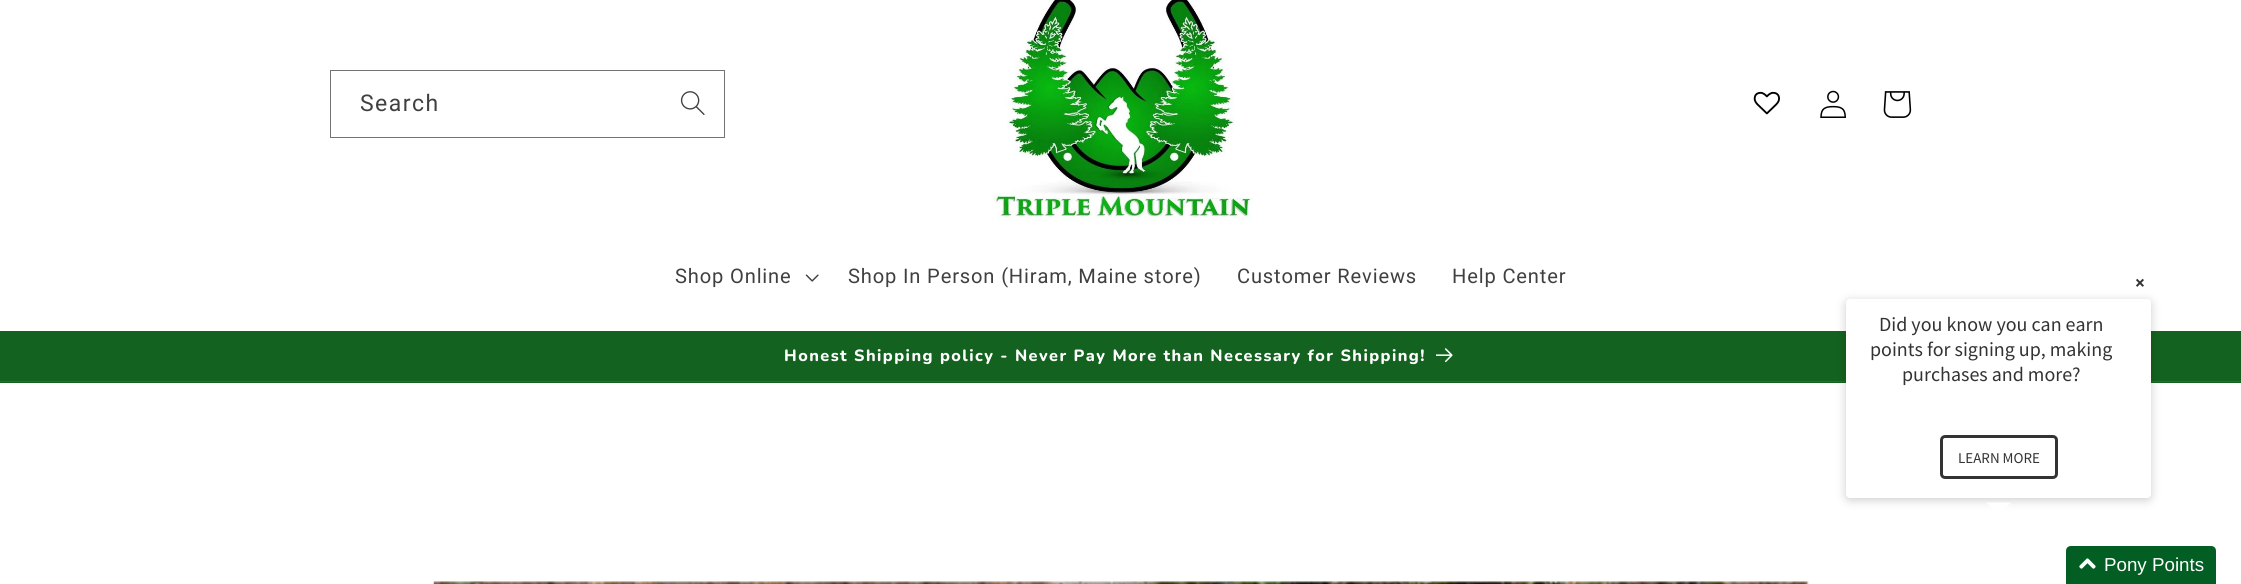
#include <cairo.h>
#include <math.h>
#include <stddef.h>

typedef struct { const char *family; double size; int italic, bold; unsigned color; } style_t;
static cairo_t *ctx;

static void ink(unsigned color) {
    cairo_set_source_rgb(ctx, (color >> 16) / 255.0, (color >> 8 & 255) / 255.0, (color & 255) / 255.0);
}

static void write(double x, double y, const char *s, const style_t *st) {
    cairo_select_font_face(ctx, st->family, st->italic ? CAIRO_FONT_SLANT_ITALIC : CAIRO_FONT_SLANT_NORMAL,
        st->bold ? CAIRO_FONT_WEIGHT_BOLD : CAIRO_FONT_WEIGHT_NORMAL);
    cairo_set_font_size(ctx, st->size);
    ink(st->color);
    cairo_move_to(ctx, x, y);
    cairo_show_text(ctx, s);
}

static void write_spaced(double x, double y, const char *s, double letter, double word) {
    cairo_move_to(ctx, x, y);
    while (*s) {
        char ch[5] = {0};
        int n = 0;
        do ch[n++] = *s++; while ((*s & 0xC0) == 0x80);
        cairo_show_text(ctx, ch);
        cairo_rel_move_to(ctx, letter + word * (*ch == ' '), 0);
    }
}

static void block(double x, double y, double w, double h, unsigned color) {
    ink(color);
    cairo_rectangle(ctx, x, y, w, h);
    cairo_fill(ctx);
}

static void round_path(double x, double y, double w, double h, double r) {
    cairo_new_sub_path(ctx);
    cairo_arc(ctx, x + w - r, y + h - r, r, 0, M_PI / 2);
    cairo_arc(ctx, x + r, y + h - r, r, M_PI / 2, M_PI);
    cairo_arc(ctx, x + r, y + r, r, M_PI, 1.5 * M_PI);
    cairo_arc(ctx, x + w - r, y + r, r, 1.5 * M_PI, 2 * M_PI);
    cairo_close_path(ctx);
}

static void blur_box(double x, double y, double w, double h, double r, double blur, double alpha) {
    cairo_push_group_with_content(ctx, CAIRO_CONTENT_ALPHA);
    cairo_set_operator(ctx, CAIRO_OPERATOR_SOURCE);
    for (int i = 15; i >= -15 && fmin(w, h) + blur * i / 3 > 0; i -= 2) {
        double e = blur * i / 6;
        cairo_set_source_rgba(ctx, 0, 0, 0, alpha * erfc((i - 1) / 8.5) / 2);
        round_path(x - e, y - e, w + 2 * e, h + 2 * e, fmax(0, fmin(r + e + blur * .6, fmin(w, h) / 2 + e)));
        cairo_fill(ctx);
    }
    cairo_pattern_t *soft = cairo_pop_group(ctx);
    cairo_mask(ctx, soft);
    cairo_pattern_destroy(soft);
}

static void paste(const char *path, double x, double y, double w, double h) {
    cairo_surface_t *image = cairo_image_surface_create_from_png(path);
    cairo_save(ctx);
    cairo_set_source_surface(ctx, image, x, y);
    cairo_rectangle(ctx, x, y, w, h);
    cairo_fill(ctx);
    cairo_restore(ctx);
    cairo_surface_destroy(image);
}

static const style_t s1 = {"Source Sans Pro", 18.75, 0, 1, 0x333333};
static const style_t s2 = {"Source Sans Pro", 20, 0, 0, 0x333333};
static const style_t s3 = {"Source Sans Pro", 15, 0, 0, 0x333333};
static const style_t s4 = {"Liberation Sans", 18.75, 0, 0, 0xffffff};

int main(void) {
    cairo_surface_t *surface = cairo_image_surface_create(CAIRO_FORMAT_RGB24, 2241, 584);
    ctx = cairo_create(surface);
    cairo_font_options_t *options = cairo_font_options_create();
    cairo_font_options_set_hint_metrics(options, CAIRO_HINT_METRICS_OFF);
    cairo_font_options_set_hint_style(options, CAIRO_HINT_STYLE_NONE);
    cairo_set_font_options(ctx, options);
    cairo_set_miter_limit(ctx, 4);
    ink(0xffffff);
    cairo_paint(ctx);
    paste("pic1.png", 680, 91, 25, 24);
    cairo_rectangle(ctx, 330.5, 70.5, 394, 67);
    ink(0x737373);
    cairo_set_line_width(ctx, 1);
    cairo_stroke(ctx);
    cairo_select_font_face(ctx, "Roboto", CAIRO_FONT_SLANT_NORMAL, CAIRO_FONT_WEIGHT_NORMAL);
    cairo_set_font_size(ctx, 23);
    ink(0x404040);
    write_spaced(360, 111, "Search", 1.45, 0);
    paste("pic2.png", 992, 0, 261, 221);
    paste("pic3.png", 1753, 91, 27, 24);
    paste("pic4.png", 1820, 90, 26, 28);
    paste("pic5.png", 1883, 91, 29, 27);
    cairo_set_font_size(ctx, 20.1);
    write_spaced(675, 283, "Shop Online", 0.85, 0);
    paste("pic6.png", 805, 274, 14, 8);
    write_spaced(848, 283, "Shop In Person (Hiram, Maine store)", 0.85, 0);
    write_spaced(1237, 283, "Customer Reviews", 0.85, 0);
    write_spaced(1452, 283, "Help Center", 0.85, 0);
    block(0, 331, 2241, 52, 0x13621f);
    block(0, 381, 2241, 1, 0x266f31);
    cairo_select_font_face(ctx, "Nunito ExtraBold", CAIRO_FONT_SLANT_NORMAL, CAIRO_FONT_WEIGHT_NORMAL);
    cairo_set_font_size(ctx, 16.25);
    ink(0xffffff);
    write_spaced(784, 361, "Honest Shipping policy - Never Pay More than Necessary for Shipping!", 1.45, 0);
    paste("pic7.png", 1436, 348, 17, 15);
    write(2135, 289, "×", &s1);
    ink(0x000000);
    blur_box(1846, 301, 305, 199, 4, 5, 0.2);
    ink(0xffffff);
    round_path(1846, 299, 305, 199, 4);
    cairo_fill(ctx);
    write(1879, 331, "Did you know you can earn", &s2);
    write(1870, 356, "points for signing up, making", &s2);
    write(1902, 381, "purchases and more?", &s2);
    round_path(1941.5, 436.5, 115, 41, 3.5);
    cairo_set_line_width(ctx, 3);
    cairo_stroke(ctx);
    write(1958, 463, "LEARN MORE", &s3);
    ink(0xffffff);
    cairo_new_path(ctx);
    cairo_move_to(ctx, 1986, 502.5);
    cairo_line_to(ctx, 2011, 502.5);
    cairo_line_to(ctx, 1999, 515);
    cairo_close_path(ctx);
    cairo_fill(ctx);
    ink(0x025e22);
    cairo_new_path(ctx);
    cairo_move_to(ctx, 2071, 546);
    cairo_line_to(ctx, 2211, 546);
    cairo_curve_to(ctx, 2214, 546, 2216, 548, 2216, 551);
    cairo_line_to(ctx, 2216, 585);
    cairo_line_to(ctx, 2066, 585);
    cairo_line_to(ctx, 2066, 551);
    cairo_curve_to(ctx, 2066, 548, 2068, 546, 2071, 546);
    cairo_close_path(ctx);
    cairo_fill(ctx);
    paste("pic8.png", 2079, 558, 17, 11);
    write(2104, 571, "Pony Points", &s4);
    paste("pic9.png", 433, 581, 1376, 3);
    cairo_surface_write_to_png(surface, "screenshot.png");
    cairo_font_options_destroy(options);
    cairo_destroy(ctx);
    cairo_surface_destroy(surface);
    return 0;
}
